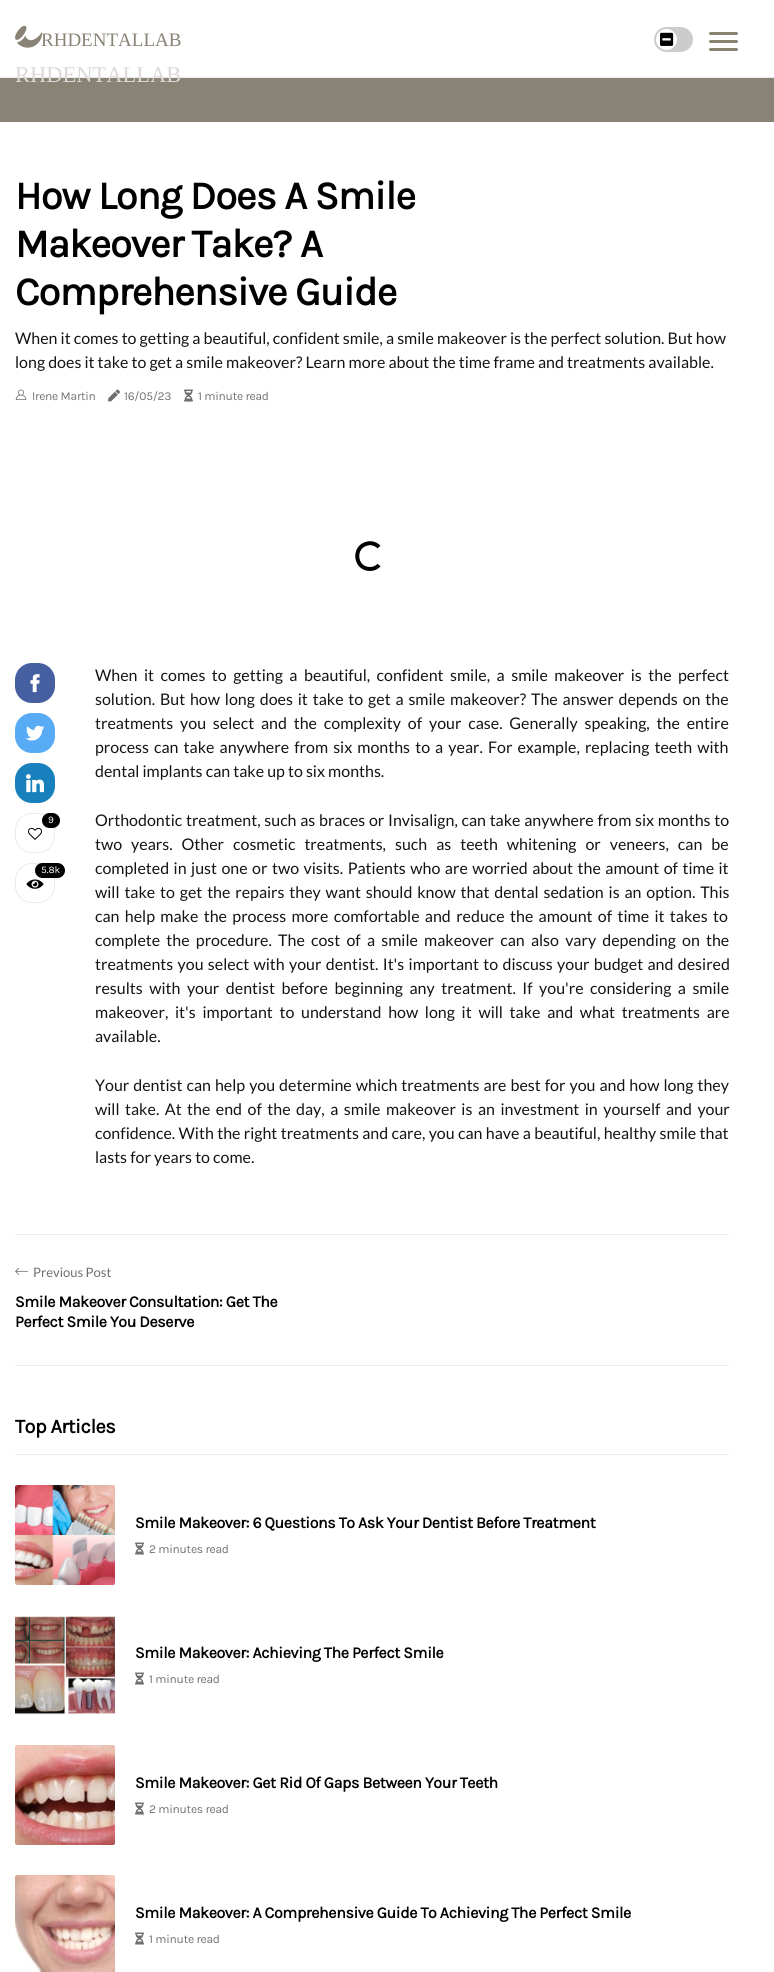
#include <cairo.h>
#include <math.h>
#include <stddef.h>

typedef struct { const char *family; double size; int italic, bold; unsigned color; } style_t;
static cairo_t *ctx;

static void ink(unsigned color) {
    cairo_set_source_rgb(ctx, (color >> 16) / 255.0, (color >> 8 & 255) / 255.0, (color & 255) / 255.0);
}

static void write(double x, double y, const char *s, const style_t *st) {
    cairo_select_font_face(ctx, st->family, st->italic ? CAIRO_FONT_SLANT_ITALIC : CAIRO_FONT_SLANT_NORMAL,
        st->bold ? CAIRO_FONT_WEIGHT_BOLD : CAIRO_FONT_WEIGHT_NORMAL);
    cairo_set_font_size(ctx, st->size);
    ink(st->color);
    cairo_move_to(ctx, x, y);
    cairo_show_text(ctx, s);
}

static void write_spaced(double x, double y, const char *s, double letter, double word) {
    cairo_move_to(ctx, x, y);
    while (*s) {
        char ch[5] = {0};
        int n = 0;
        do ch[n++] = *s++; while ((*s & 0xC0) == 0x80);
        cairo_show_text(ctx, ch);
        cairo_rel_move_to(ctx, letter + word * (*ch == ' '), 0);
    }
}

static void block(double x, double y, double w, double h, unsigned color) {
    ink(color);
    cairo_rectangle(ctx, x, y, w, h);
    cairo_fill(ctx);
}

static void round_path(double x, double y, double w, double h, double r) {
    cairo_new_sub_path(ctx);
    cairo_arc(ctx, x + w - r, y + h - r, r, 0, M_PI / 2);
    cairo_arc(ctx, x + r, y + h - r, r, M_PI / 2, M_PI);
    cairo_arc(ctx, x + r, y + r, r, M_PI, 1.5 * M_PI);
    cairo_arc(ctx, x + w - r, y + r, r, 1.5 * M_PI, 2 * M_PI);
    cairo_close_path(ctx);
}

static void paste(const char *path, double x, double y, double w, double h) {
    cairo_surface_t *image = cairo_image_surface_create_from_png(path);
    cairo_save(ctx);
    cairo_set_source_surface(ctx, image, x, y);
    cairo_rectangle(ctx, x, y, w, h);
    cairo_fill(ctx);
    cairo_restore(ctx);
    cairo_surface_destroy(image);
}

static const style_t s1 = {"Liberation Serif", 19, 0, 0, 0x898375};
static const style_t s2 = {"Liberation Serif", 22.5, 0, 0, 0xdbd9d5};
static const style_t s3 = {"Lato", 16, 0, 0, 0x121416};
static const style_t s4 = {"Karla", 10, 0, 0, 0xffffff};
static const style_t s5 = {"Lato", 13, 0, 0, 0x6f6f6f};

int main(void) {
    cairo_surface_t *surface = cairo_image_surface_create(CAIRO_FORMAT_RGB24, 774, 1972);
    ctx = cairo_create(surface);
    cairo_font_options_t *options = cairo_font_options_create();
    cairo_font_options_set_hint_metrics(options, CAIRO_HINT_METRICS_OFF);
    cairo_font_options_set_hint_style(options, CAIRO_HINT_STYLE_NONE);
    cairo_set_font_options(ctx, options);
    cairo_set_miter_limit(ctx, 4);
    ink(0xffffff);
    cairo_paint(ctx);
    block(0, 78, 774, 44, 0x898375);
    block(0, 77, 774, 1, 0xebebeb);
    paste("pic1.png", 15, 25, 27, 23);
    write(41, 46, "RHDENTALLAB", &s1);
    write(15, 82, "RHDENTALLAB", &s2);
    ink(0xcccccc);
    round_path(654, 27, 39, 25, 12.5);
    cairo_fill(ctx);
    ink(0xffffff);
    cairo_arc(ctx, 666.5, 39.5, 10.5, 0, 2 * M_PI);
    cairo_fill(ctx);
    paste("pic2.png", 660, 32, 14, 14);
    ink(0x898375);
    round_path(709, 32, 29, 3, 1.5);
    cairo_fill(ctx);
    round_path(709, 40, 29, 3, 1.5);
    cairo_fill(ctx);
    round_path(709, 48, 29, 3, 1.5);
    cairo_fill(ctx);
    cairo_select_font_face(ctx, "Karla", CAIRO_FONT_SLANT_NORMAL, CAIRO_FONT_WEIGHT_BOLD);
    cairo_set_font_size(ctx, 40);
    ink(0x000000);
    write_spaced(15, 209, "How Long Does A Smile", -1, 0);
    write_spaced(15, 257, "Makeover Take? A", -1, 0);
    write_spaced(15, 305, "Comprehensive Guide", -1, 0);
    write(15, 344, "When it comes to getting a beautiful, confident smile, a smile makeover is the perfect solution. But how", &s3);
    write(15, 368, "long does it take to get a smile makeover? Learn more about the time frame and treatments available.", &s3);
    paste("pic3.png", 15, 389, 12, 11);
    cairo_select_font_face(ctx, "Karla", CAIRO_FONT_SLANT_NORMAL, CAIRO_FONT_WEIGHT_NORMAL);
    cairo_set_font_size(ctx, 12);
    ink(0x6f6f6f);
    write_spaced(32, 400, "Irene Martin", -0.25, 0);
    paste("pic4.png", 108, 389, 12, 13);
    write_spaced(124, 400, "16/05/23", -0.25, 0);
    paste("pic5.png", 184, 389, 9, 13);
    write_spaced(198, 400, "1 minute read", -0.25, 0);
    cairo_new_path(ctx);
    cairo_move_to(ctx, 379, 565);
    cairo_curve_to(ctx, 377, 567.5, 373.5, 569, 370, 569);
    cairo_curve_to(ctx, 354.5, 569, 352.5, 546.5, 367.5, 543.5);
    cairo_curve_to(ctx, 371.5, 542.5, 376, 544, 379, 547);
    ink(0x000000);
    cairo_set_line_width(ctx, 4);
    cairo_stroke(ctx);
    ink(0x455fa1);
    round_path(15, 663, 40, 40, 17);
    cairo_fill(ctx);
    paste("pic6.png", 30, 674, 10, 19);
    ink(0x58abf5);
    round_path(15, 713, 40, 40, 17);
    cairo_fill(ctx);
    paste("pic7.png", 26, 725, 18, 16);
    ink(0x1980be);
    round_path(15, 763, 40, 40, 17);
    cairo_fill(ctx);
    paste("pic8.png", 26, 774, 18, 19);
    round_path(15.5, 813.5, 39, 39, 16.5);
    ink(0xebebeb);
    cairo_set_line_width(ctx, 1);
    cairo_stroke(ctx);
    paste("pic9.png", 28, 827, 14, 13);
    ink(0x000000);
    round_path(42, 813, 18, 15, 7.5);
    cairo_fill(ctx);
    write(48, 823, "9", &s4);
    round_path(15.5, 863.5, 39, 39, 16.5);
    ink(0xebebeb);
    cairo_stroke(ctx);
    paste("pic10.png", 26, 879, 18, 10);
    ink(0x000000);
    round_path(35, 863, 30, 15, 7.5);
    cairo_fill(ctx);
    write(41, 873, "5.8k", &s4);
    cairo_select_font_face(ctx, "Lato", CAIRO_FONT_SLANT_NORMAL, CAIRO_FONT_WEIGHT_NORMAL);
    cairo_set_font_size(ctx, 16);
    ink(0x121416);
    write_spaced(95, 681, "When it comes to getting a beautiful, confident smile, a smile makeover is the perfect", 0, 3.4);
    write_spaced(95, 705, "solution. But how long does it take to get a smile makeover? The answer depends on the", 0, 1.75);
    write_spaced(95, 729, "treatments you select and the complexity of your case. Generally speaking, the entire", 0, 3.75);
    write_spaced(95, 753, "process can take anywhere from six months to a year. For example, replacing teeth with", 0, 2);
    write(95, 777, "dental implants can take up to six months.", &s3);
    write_spaced(95, 826, "Orthodontic treatment, such as braces or Invisalign, can take anywhere from six months to", 0, 0.6);
    write_spaced(95, 850, "two years. Other cosmetic treatments, such as teeth whitening or veneers, can be", 0, 5.9);
    write_spaced(95, 874, "completed in just one or two visits. Patients who are worried about the amount of time it", 0, 1.4);
    write_spaced(95, 898, "will take to get the repairs they want should know that dental sedation is an option. This", 0, 1.75);
    write_spaced(95, 922, "can help make the process more comfortable and reduce the amount of time it takes to", 0, 2.25);
    write_spaced(95, 946, "complete the procedure. The cost of a smile makeover can also vary depending on the", 0, 3.1);
    write_spaced(95, 970, "treatments you select with your dentist. It's important to discuss your budget and desired", 0, 1.25);
    write_spaced(95, 994, "results with your dentist before beginning any treatment. If you're considering a smile", 0, 3.4);
    write_spaced(95, 1018, "makeover, it's important to understand how long it will take and what treatments are", 0, 3.6);
    write(95, 1042, "available.", &s3);
    write_spaced(95, 1091, "Your dentist can help you determine which treatments are best for you and how long they", 0, 0.9);
    write_spaced(95, 1115, "will take. At the end of the day, a smile makeover is an investment in yourself and your", 0, 2.4);
    write_spaced(95, 1139, "confidence. With the right treatments and care, you can have a beautiful, healthy smile that", 0, 0.25);
    write(95, 1163, "lasts for years to come.", &s3);
    block(15, 1234, 714, 1, 0xebebeb);
    block(15, 1365, 714, 1, 0xebebeb);
    paste("pic11.png", 15, 1267, 13, 8);
    write(33, 1277, "Previous Post", &s5);
    cairo_select_font_face(ctx, "Karla", CAIRO_FONT_SLANT_NORMAL, CAIRO_FONT_WEIGHT_BOLD);
    cairo_set_font_size(ctx, 16);
    ink(0x000000);
    write_spaced(15, 1307, "Smile Makeover Consultation: Get The", -0.4, 0);
    write_spaced(15, 1327, "Perfect Smile You Deserve", -0.4, 0);
    block(15, 1454, 714, 1, 0xebebeb);
    cairo_set_font_size(ctx, 20);
    ink(0x000000);
    write_spaced(15, 1433, "Top Articles", -0.5, 0);
    paste("pic12.png", 15, 1485, 100, 100);
    cairo_set_font_size(ctx, 16);
    write_spaced(135, 1528, "Smile Makeover: 6 Questions To Ask Your Dentist Before Treatment", -0.4, 0);
    paste("pic5.png", 135, 1542, 9, 13);
    cairo_select_font_face(ctx, "Karla", CAIRO_FONT_SLANT_NORMAL, CAIRO_FONT_WEIGHT_NORMAL);
    cairo_set_font_size(ctx, 12);
    ink(0x6f6f6f);
    write_spaced(149, 1553, "2 minutes read", -0.25, 0);
    paste("pic13.png", 15, 1615, 100, 100);
    cairo_select_font_face(ctx, "Karla", CAIRO_FONT_SLANT_NORMAL, CAIRO_FONT_WEIGHT_BOLD);
    cairo_set_font_size(ctx, 16);
    ink(0x000000);
    write_spaced(135, 1658, "Smile Makeover: Achieving The Perfect Smile", -0.4, 0);
    paste("pic5.png", 135, 1672, 9, 13);
    cairo_select_font_face(ctx, "Karla", CAIRO_FONT_SLANT_NORMAL, CAIRO_FONT_WEIGHT_NORMAL);
    cairo_set_font_size(ctx, 12);
    ink(0x6f6f6f);
    write_spaced(149, 1683, "1 minute read", -0.25, 0);
    paste("pic14.png", 15, 1745, 100, 100);
    cairo_select_font_face(ctx, "Karla", CAIRO_FONT_SLANT_NORMAL, CAIRO_FONT_WEIGHT_BOLD);
    cairo_set_font_size(ctx, 16);
    ink(0x000000);
    write_spaced(135, 1788, "Smile Makeover: Get Rid Of Gaps Between Your Teeth", -0.4, 0);
    paste("pic5.png", 135, 1802, 9, 13);
    cairo_select_font_face(ctx, "Karla", CAIRO_FONT_SLANT_NORMAL, CAIRO_FONT_WEIGHT_NORMAL);
    cairo_set_font_size(ctx, 12);
    ink(0x6f6f6f);
    write_spaced(149, 1813, "2 minutes read", -0.25, 0);
    paste("pic15.png", 15, 1875, 100, 97);
    cairo_select_font_face(ctx, "Karla", CAIRO_FONT_SLANT_NORMAL, CAIRO_FONT_WEIGHT_BOLD);
    cairo_set_font_size(ctx, 16);
    ink(0x000000);
    write_spaced(135, 1918, "Smile Makeover: A Comprehensive Guide To Achieving The Perfect Smile", -0.4, 0);
    paste("pic5.png", 135, 1932, 9, 13);
    cairo_select_font_face(ctx, "Karla", CAIRO_FONT_SLANT_NORMAL, CAIRO_FONT_WEIGHT_NORMAL);
    cairo_set_font_size(ctx, 12);
    ink(0x6f6f6f);
    write_spaced(149, 1943, "1 minute read", -0.25, 0);
    cairo_surface_write_to_png(surface, "screenshot.png");
    cairo_font_options_destroy(options);
    cairo_destroy(ctx);
    cairo_surface_destroy(surface);
    return 0;
}
